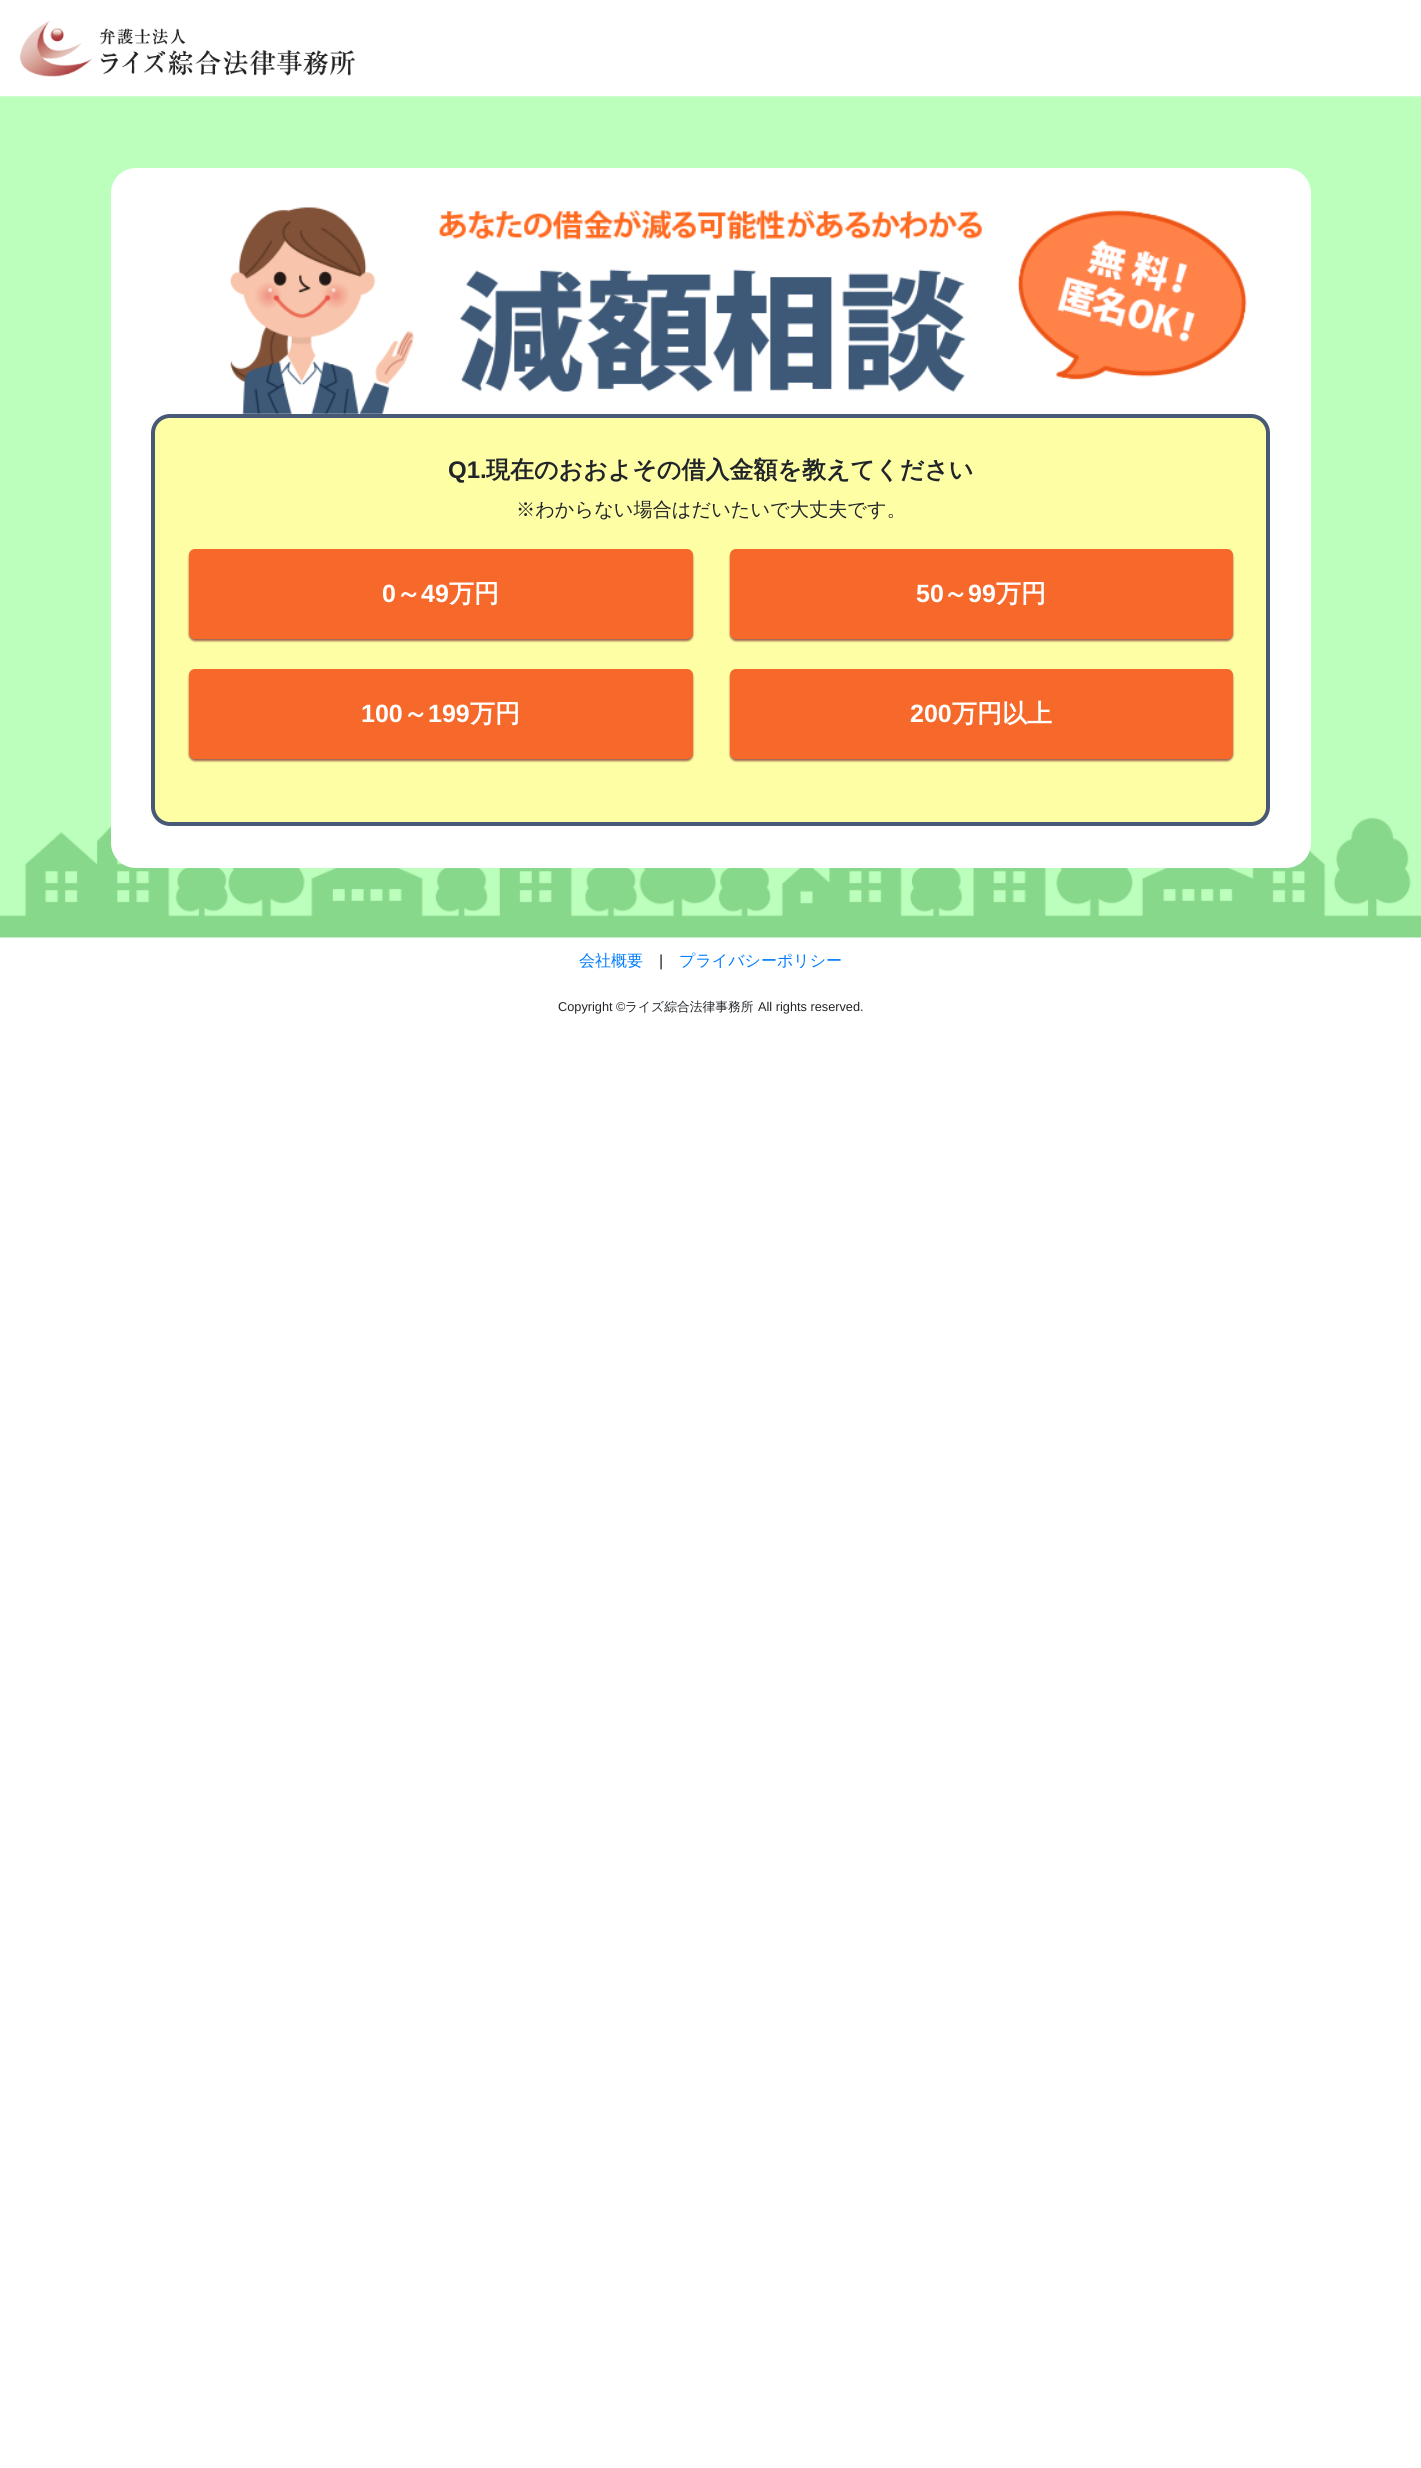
#include <cairo.h>
#include <math.h>
#include <stddef.h>

typedef struct { const char *family; double size; int italic, bold; unsigned color; } style_t;
static cairo_t *ctx;

static void ink(unsigned color) {
    cairo_set_source_rgb(ctx, (color >> 16) / 255.0, (color >> 8 & 255) / 255.0, (color & 255) / 255.0);
}

static void write(double x, double y, const char *s, const style_t *st) {
    cairo_select_font_face(ctx, st->family, st->italic ? CAIRO_FONT_SLANT_ITALIC : CAIRO_FONT_SLANT_NORMAL,
        st->bold ? CAIRO_FONT_WEIGHT_BOLD : CAIRO_FONT_WEIGHT_NORMAL);
    cairo_set_font_size(ctx, st->size);
    ink(st->color);
    cairo_move_to(ctx, x, y);
    cairo_show_text(ctx, s);
}

static void round_path(double x, double y, double w, double h, double r) {
    cairo_new_sub_path(ctx);
    cairo_arc(ctx, x + w - r, y + h - r, r, 0, M_PI / 2);
    cairo_arc(ctx, x + r, y + h - r, r, M_PI / 2, M_PI);
    cairo_arc(ctx, x + r, y + r, r, M_PI, 1.5 * M_PI);
    cairo_arc(ctx, x + w - r, y + r, r, 1.5 * M_PI, 2 * M_PI);
    cairo_close_path(ctx);
}

static void blur_box(double x, double y, double w, double h, double r, double blur, double alpha) {
    cairo_push_group_with_content(ctx, CAIRO_CONTENT_ALPHA);
    cairo_set_operator(ctx, CAIRO_OPERATOR_SOURCE);
    for (int i = 15; i >= -15 && fmin(w, h) + blur * i / 3 > 0; i -= 2) {
        double e = blur * i / 6;
        cairo_set_source_rgba(ctx, 0, 0, 0, alpha * erfc((i - 1) / 8.5) / 2);
        round_path(x - e, y - e, w + 2 * e, h + 2 * e, fmax(0, fmin(r + e + blur * .6, fmin(w, h) / 2 + e)));
        cairo_fill(ctx);
    }
    cairo_pattern_t *soft = cairo_pop_group(ctx);
    cairo_mask(ctx, soft);
    cairo_pattern_destroy(soft);
}

static void paste(const char *path, double x, double y, double w, double h) {
    cairo_surface_t *image = cairo_image_surface_create_from_png(path);
    cairo_save(ctx);
    cairo_set_source_surface(ctx, image, x, y);
    cairo_rectangle(ctx, x, y, w, h);
    cairo_fill(ctx);
    cairo_restore(ctx);
    cairo_surface_destroy(image);
}

static const style_t s1 = {"Liberation Sans", 24, 0, 1, 0x212529};
static const style_t s2 = {"WenQuanYi Zen Hei", 24, 0, 1, 0x212529};
static const style_t s3 = {"WenQuanYi Zen Hei Medium", 19.2, 0, 0, 0x212529};
static const style_t s4 = {"Liberation Sans", 25, 0, 1, 0xffffff};
static const style_t s5 = {"WenQuanYi Zen Hei", 25, 0, 1, 0xffffff};
static const style_t s6 = {"WenQuanYi Zen Hei Medium", 16, 0, 0, 0x007bff};
static const style_t s7 = {"Liberation Sans", 16, 0, 0, 0x212529};
static const style_t s8 = {"Liberation Sans", 12.75, 0, 0, 0x212529};
static const style_t s9 = {"WenQuanYi Zen Hei Medium", 12.75, 0, 0, 0x212529};

int main(void) {
    cairo_surface_t *surface = cairo_image_surface_create(CAIRO_FORMAT_RGB24, 1421, 2468);
    ctx = cairo_create(surface);
    cairo_font_options_t *options = cairo_font_options_create();
    cairo_font_options_set_hint_metrics(options, CAIRO_HINT_METRICS_OFF);
    cairo_font_options_set_hint_style(options, CAIRO_HINT_STYLE_NONE);
    cairo_set_font_options(ctx, options);
    cairo_set_miter_limit(ctx, 4);
    ink(0xffffff);
    cairo_paint(ctx);
    paste("pic1.png", 20, 20, 335, 57);
    paste("pic2.png", 0, 96, 1421, 842);
    ink(0xffffff);
    round_path(111, 168, 1200, 700, 25);
    cairo_fill(ctx);
    paste("pic3.png", 230, 207, 1017, 207);
    ink(0xfeffa5);
    round_path(153, 416, 1115, 408, 17);
    cairo_fill_preserve(ctx);
    ink(0x485975);
    cairo_set_line_width(ctx, 4);
    cairo_stroke(ctx);
    write(448, 478, "Q1.", &s1);
    write(486, 478, "現在のおおよその借入金額を教えてください", &s2);
    write(516, 516, "※わからない場合はだいたいで大丈夫です。", &s3);
    ink(0x843b3b);
    blur_box(189, 551, 504, 90, 6, 1, 0.8);
    ink(0xf6692b);
    round_path(189, 549, 504, 90, 6);
    cairo_fill(ctx);
    write(382, 602, "0", &s4);
    write(396, 602, "～", &s5);
    write(421, 602, "49", &s4);
    write(449, 602, "万円", &s5);
    ink(0x843b3b);
    blur_box(730, 551, 503, 90, 6, 1, 0.8);
    ink(0xf6692b);
    round_path(730, 549, 503, 90, 6);
    cairo_fill(ctx);
    write(916, 602, "50", &s4);
    write(943, 602, "～", &s5);
    write(968, 602, "99", &s4);
    write(996, 602, "万円", &s5);
    ink(0x843b3b);
    blur_box(189, 671, 504, 90, 6, 1, 0.8);
    ink(0xf6692b);
    round_path(189, 669, 504, 90, 6);
    cairo_fill(ctx);
    write(361, 722, "100", &s4);
    write(403, 722, "～", &s5);
    write(428, 722, "199", &s4);
    write(470, 722, "万円", &s5);
    ink(0x843b3b);
    blur_box(730, 671, 503, 90, 6, 1, 0.8);
    ink(0xf6692b);
    round_path(730, 669, 503, 90, 6);
    cairo_fill(ctx);
    write(910, 722, "200", &s4);
    write(952, 722, "万円以上", &s5);
    write(579, 966, "会社概要", &s6);
    write(659, 966, "|", &s7);
    write(679, 966, "プライバシーポリシー", &s6);
    write(558, 1011, "Copyright ©", &s8);
    write(625, 1011, "ライズ綜合法律事務所", &s9);
    write(758, 1011, "All rights reserved.", &s8);
    cairo_surface_write_to_png(surface, "screenshot.png");
    cairo_font_options_destroy(options);
    cairo_destroy(ctx);
    cairo_surface_destroy(surface);
    return 0;
}
